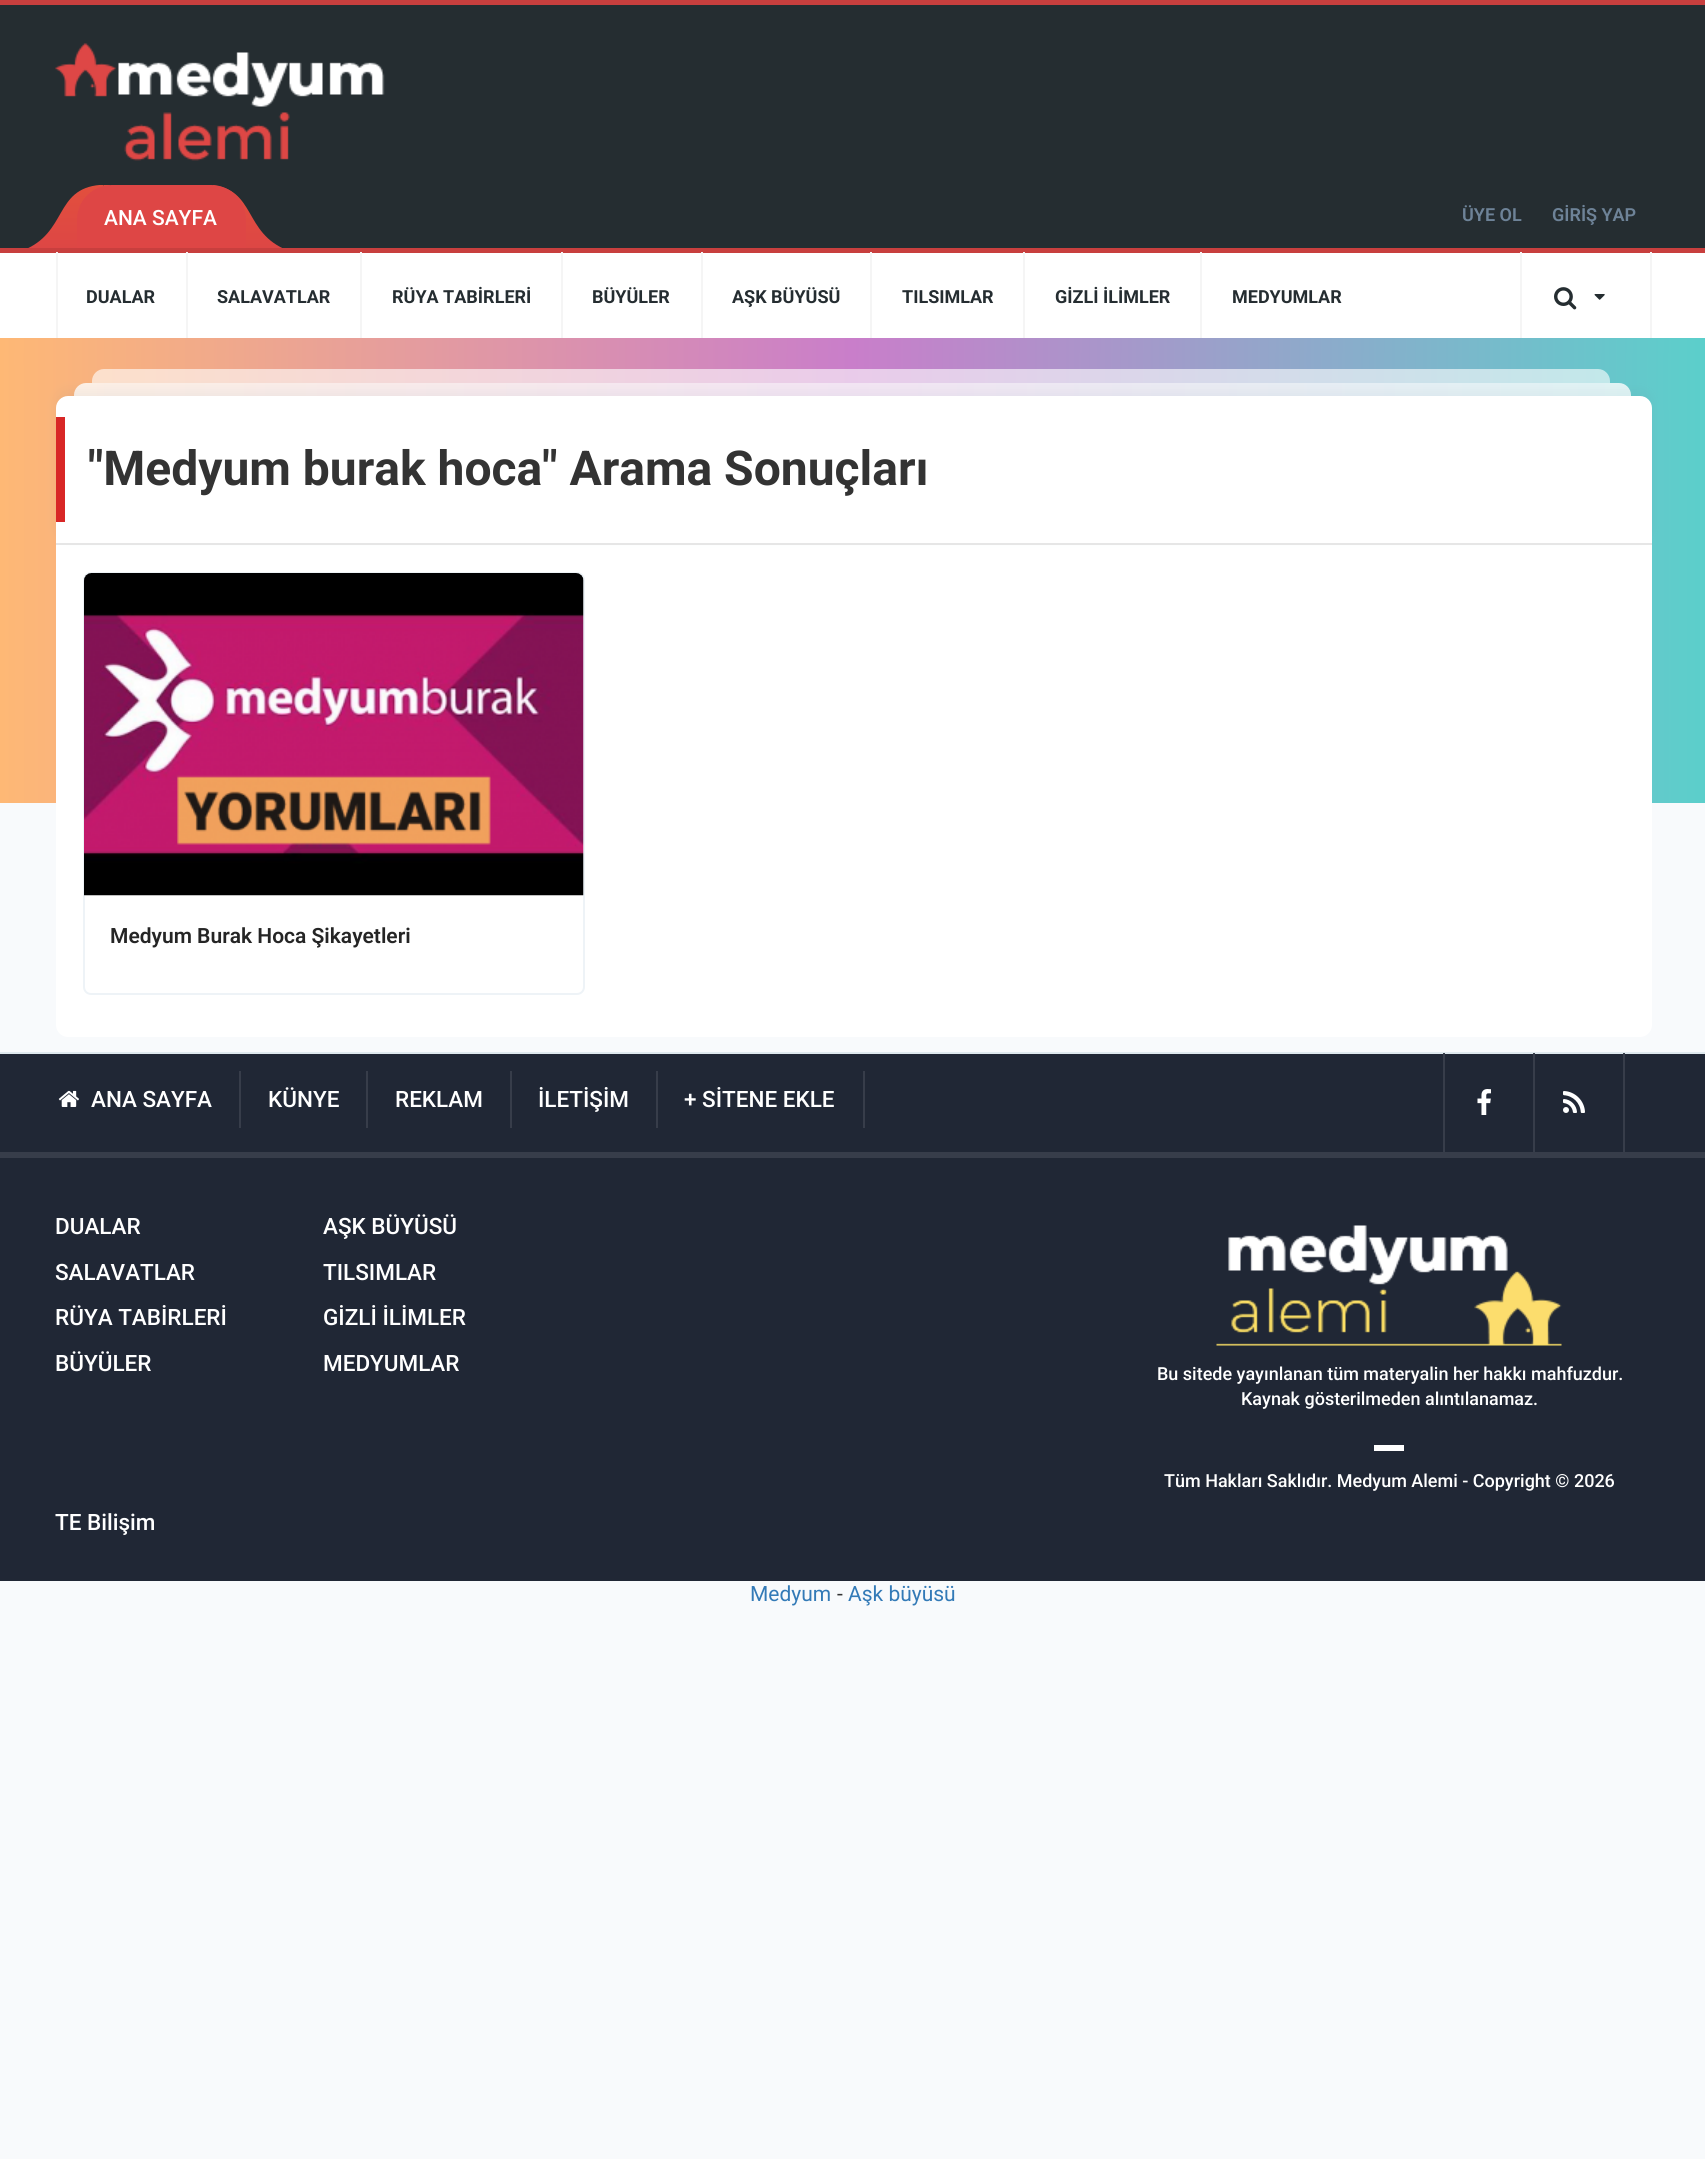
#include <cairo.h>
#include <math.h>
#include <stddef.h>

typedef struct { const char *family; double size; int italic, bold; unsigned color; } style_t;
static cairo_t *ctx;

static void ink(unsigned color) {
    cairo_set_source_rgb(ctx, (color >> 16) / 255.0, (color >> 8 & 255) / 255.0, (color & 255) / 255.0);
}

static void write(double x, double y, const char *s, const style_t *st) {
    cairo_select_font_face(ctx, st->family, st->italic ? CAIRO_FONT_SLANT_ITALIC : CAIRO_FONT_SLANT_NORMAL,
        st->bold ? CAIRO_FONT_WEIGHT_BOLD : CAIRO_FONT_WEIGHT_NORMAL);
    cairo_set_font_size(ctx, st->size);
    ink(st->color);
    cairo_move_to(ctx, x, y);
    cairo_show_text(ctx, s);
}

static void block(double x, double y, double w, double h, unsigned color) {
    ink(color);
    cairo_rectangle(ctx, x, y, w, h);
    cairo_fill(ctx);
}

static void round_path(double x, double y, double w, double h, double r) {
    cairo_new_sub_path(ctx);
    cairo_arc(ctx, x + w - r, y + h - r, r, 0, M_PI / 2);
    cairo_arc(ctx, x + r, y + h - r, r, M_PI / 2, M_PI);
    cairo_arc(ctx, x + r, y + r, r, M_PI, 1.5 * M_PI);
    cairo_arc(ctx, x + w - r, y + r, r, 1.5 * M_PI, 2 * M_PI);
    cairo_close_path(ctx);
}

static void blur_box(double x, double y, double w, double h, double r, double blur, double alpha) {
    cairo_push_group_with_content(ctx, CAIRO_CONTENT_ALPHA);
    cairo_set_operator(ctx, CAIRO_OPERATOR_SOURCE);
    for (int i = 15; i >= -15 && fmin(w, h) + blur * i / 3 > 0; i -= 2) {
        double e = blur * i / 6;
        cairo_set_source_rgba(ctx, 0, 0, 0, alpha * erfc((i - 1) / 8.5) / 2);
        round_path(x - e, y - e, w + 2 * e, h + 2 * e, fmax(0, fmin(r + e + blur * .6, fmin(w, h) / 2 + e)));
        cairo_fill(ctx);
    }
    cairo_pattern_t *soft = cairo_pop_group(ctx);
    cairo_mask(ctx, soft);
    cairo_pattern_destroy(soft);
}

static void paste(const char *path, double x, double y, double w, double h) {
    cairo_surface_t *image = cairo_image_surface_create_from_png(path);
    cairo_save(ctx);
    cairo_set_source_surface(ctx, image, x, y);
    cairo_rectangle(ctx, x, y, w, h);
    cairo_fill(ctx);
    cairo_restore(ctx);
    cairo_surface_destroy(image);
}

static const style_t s1 = {"Roboto Medium", 21, 0, 0, 0xffffff};
static const style_t s2 = {"Roboto SemiBold", 18, 0, 0, 0x6e8398};
static const style_t s3 = {"Roboto", 18, 0, 1, 0x252d31};
static const style_t s4 = {"Roboto", 48, 0, 1, 0x333333};
static const style_t s5 = {"Roboto SemiBold", 21, 0, 0, 0x252525};
static const style_t s6 = {"Roboto Medium", 22.5, 0, 0, 0xffffff};
static const style_t s7 = {"Roboto Medium", 18, 0, 0, 0xffffff};
static const style_t s8 = {"Roboto", 21, 0, 0, 0x337ab7};
static const style_t s9 = {"Roboto", 21, 0, 0, 0x333333};

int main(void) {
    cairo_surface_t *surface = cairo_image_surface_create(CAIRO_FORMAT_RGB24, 1705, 2159);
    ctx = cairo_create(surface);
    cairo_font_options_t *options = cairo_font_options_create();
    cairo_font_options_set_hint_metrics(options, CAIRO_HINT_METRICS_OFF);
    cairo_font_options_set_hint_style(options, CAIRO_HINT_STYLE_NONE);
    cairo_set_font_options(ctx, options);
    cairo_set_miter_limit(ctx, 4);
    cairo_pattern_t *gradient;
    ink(0xf8fafc);
    cairo_paint(ctx);
    block(0, 5, 1705, 243, 0x252d31);
    block(0, 0, 1705, 5, 0xc83f3e);
    paste("pic1.png", 55, 43, 330, 118);
    paste("pic2.png", 28, 185, 82, 63);
    paste("pic3.png", 213, 185, 69, 63);
    ink(0xde4645);
    cairo_new_path(ctx);
    cairo_move_to(ctx, 112, 185);
    cairo_line_to(ctx, 211, 185);
    cairo_curve_to(ctx, 230.5, 185, 246, 200.5, 246, 220);
    cairo_line_to(ctx, 246, 248);
    cairo_line_to(ctx, 77, 248);
    cairo_line_to(ctx, 77, 220);
    cairo_curve_to(ctx, 77, 200.5, 92.5, 185, 112, 185);
    cairo_close_path(ctx);
    cairo_fill(ctx);
    write(104, 225, "ANA SAYFA", &s1);
    write(1462, 221, "ÜYE OL", &s2);
    write(1552, 221, "GİRİŞ YAP", &s2);
    block(0, 253, 1705, 85, 0xffffff);
    block(0, 248, 1705, 5, 0xc83f3e);
    block(1650, 252, 2, 86, 0xf5f5f5);
    block(56, 252, 2, 86, 0xf5f5f5);
    write(86, 303, "DUALAR", &s3);
    block(186, 252, 2, 86, 0xf5f5f5);
    write(217, 303, "SALAVATLAR", &s3);
    block(360, 252, 2, 86, 0xf5f5f5);
    write(392, 303, "RÜYA TABİRLERİ", &s3);
    block(561, 252, 2, 86, 0xf5f5f5);
    write(592, 303, "BÜYÜLER", &s3);
    block(701, 252, 2, 86, 0xf5f5f5);
    write(732, 303, "AŞK BÜYÜSÜ", &s3);
    block(870, 252, 2, 86, 0xf5f5f5);
    write(902, 303, "TILSIMLAR", &s3);
    block(1023, 252, 2, 86, 0xf5f5f5);
    write(1055, 303, "GİZLİ İLİMLER", &s3);
    block(1200, 252, 2, 86, 0xf5f5f5);
    write(1232, 303, "MEDYUMLAR", &s3);
    block(1520, 252, 2, 86, 0xf5f5f5);
    paste("pic4.png", 1554, 287, 23, 23);
    paste("pic5.png", 1594, 294, 11, 6);
    gradient = cairo_pattern_create_linear(0, 353, 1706, 352);
    cairo_pattern_add_color_stop_rgba(gradient, 0, 0.996, 0.722, 0.459, 1);
    cairo_pattern_add_color_stop_rgba(gradient, 0.5, 0.788, 0.494, 0.792, 1);
    cairo_pattern_add_color_stop_rgba(gradient, 1, 0.357, 0.812, 0.796, 1);
    cairo_set_source(ctx, gradient);
    cairo_pattern_destroy(gradient);
    cairo_rectangle(ctx, 0, 338, 1705, 15);
    cairo_fill(ctx);
    gradient = cairo_pattern_create_linear(0, 578, 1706, 577);
    cairo_pattern_add_color_stop_rgba(gradient, 0, 0.996, 0.722, 0.459, 1);
    cairo_pattern_add_color_stop_rgba(gradient, 0.5, 0.788, 0.494, 0.792, 1);
    cairo_pattern_add_color_stop_rgba(gradient, 1, 0.357, 0.812, 0.796, 1);
    cairo_set_source(ctx, gradient);
    cairo_pattern_destroy(gradient);
    cairo_rectangle(ctx, 0, 353, 1705, 450);
    cairo_fill(ctx);
    cairo_set_source_rgba(ctx, 1, 1, 1, 0.6);
    cairo_new_path(ctx);
    cairo_move_to(ctx, 104, 369);
    cairo_line_to(ctx, 1598, 369);
    cairo_curve_to(ctx, 1604.5, 369, 1610, 374.5, 1610, 381);
    cairo_line_to(ctx, 1610, 383);
    cairo_line_to(ctx, 92, 383);
    cairo_line_to(ctx, 92, 381);
    cairo_curve_to(ctx, 92, 374.5, 97.5, 369, 104, 369);
    cairo_close_path(ctx);
    cairo_fill(ctx);
    cairo_set_source_rgba(ctx, 1, 1, 1, 0.8);
    cairo_new_path(ctx);
    cairo_move_to(ctx, 86, 383);
    cairo_line_to(ctx, 1619, 383);
    cairo_curve_to(ctx, 1625.5, 383, 1631, 388.5, 1631, 395);
    cairo_line_to(ctx, 1631, 396);
    cairo_line_to(ctx, 74, 396);
    cairo_line_to(ctx, 74, 395);
    cairo_curve_to(ctx, 74, 388.5, 79.5, 383, 86, 383);
    cairo_close_path(ctx);
    cairo_fill(ctx);
    ink(0xffffff);
    cairo_new_path(ctx);
    cairo_move_to(ctx, 56, 545);
    cairo_line_to(ctx, 1652, 545);
    cairo_line_to(ctx, 1652, 1025);
    cairo_curve_to(ctx, 1652, 1031.5, 1646.5, 1037, 1640, 1037);
    cairo_line_to(ctx, 68, 1037);
    cairo_curve_to(ctx, 61.5, 1037, 56, 1031.5, 56, 1025);
    cairo_close_path(ctx);
    cairo_fill(ctx);
    ink(0x6e8398);
    blur_box(56, 390, 1596, 149, 12, 6, 0.08);
    ink(0xffffff);
    cairo_new_path(ctx);
    cairo_move_to(ctx, 68, 396);
    cairo_line_to(ctx, 1640, 396);
    cairo_curve_to(ctx, 1646.5, 396, 1652, 401.5, 1652, 408);
    cairo_line_to(ctx, 1652, 545);
    cairo_line_to(ctx, 56, 545);
    cairo_line_to(ctx, 56, 408);
    cairo_curve_to(ctx, 56, 401.5, 61.5, 396, 68, 396);
    cairo_close_path(ctx);
    cairo_fill(ctx);
    block(56, 543, 1596, 2, 0xe6e6e6);
    block(56, 417, 9, 105, 0xd82726);
    write(88, 485, "\"Medyum burak hoca\" Arama Sonuçları", &s4);
    round_path(84, 573, 500, 421, 7);
    ink(0xeef3f7);
    cairo_stroke(ctx);
    paste("pic6.png", 84, 573, 500, 323);
    write(110, 943, "Medyum Burak Hoca Şikayetleri", &s5);
    block(0, 1054, 1705, 98, 0x202735);
    block(0, 1052, 1705, 2, 0xdfe9ee);
    block(0, 1152, 1705, 6, 0x373d4a);
    block(239, 1071, 2, 57, 0x373d4a);
    paste("pic7.png", 58, 1090, 21, 17);
    write(91, 1107, "ANA SAYFA", &s6);
    block(366, 1071, 2, 57, 0x373d4a);
    write(268, 1107, "KÜNYE", &s6);
    block(510, 1071, 2, 57, 0x373d4a);
    write(395, 1107, "REKLAM", &s6);
    block(656, 1071, 2, 57, 0x373d4a);
    write(538, 1107, "İLETİŞİM", &s6);
    block(863, 1071, 2, 57, 0x373d4a);
    write(684, 1107, "+ SİTENE EKLE", &s6);
    block(1443, 1053, 2, 99, 0x373d4a);
    block(1533, 1053, 2, 99, 0x373d4a);
    paste("pic8.png", 1477, 1089, 14, 26);
    block(1623, 1053, 2, 99, 0x373d4a);
    paste("pic9.png", 1563, 1091, 22, 22);
    block(0, 1158, 1705, 423, 0x202735);
    write(55, 1234, "DUALAR", &s6);
    write(55, 1280, "SALAVATLAR", &s6);
    write(55, 1325, "RÜYA TABİRLERİ", &s6);
    write(55, 1371, "BÜYÜLER", &s6);
    write(323, 1234, "AŞK BÜYÜSÜ", &s6);
    write(323, 1280, "TILSIMLAR", &s6);
    write(323, 1325, "GİZLİ İLİMLER", &s6);
    write(323, 1371, "MEDYUMLAR", &s6);
    paste("pic10.png", 1216, 1225, 346, 121);
    write(1157, 1380, "Bu sitede yayınlanan tüm materyalin her hakkı mahfuzdur.", &s7);
    write(1241, 1405, "Kaynak gösterilmeden alıntılanamaz.", &s7);
    block(1374, 1445, 30, 6, 0xffffff);
    write(1164, 1487, "Tüm Hakları Saklıdır. Medyum Alemi - Copyright © 2026", &s7);
    write(55, 1530, "TE Bilişim", &s6);
    write(750, 1601, "Medyum", &s8);
    write(837, 1601, "-", &s9);
    write(848, 1601, "Aşk büyüsü", &s8);
    cairo_surface_write_to_png(surface, "screenshot.png");
    cairo_font_options_destroy(options);
    cairo_destroy(ctx);
    cairo_surface_destroy(surface);
    return 0;
}
